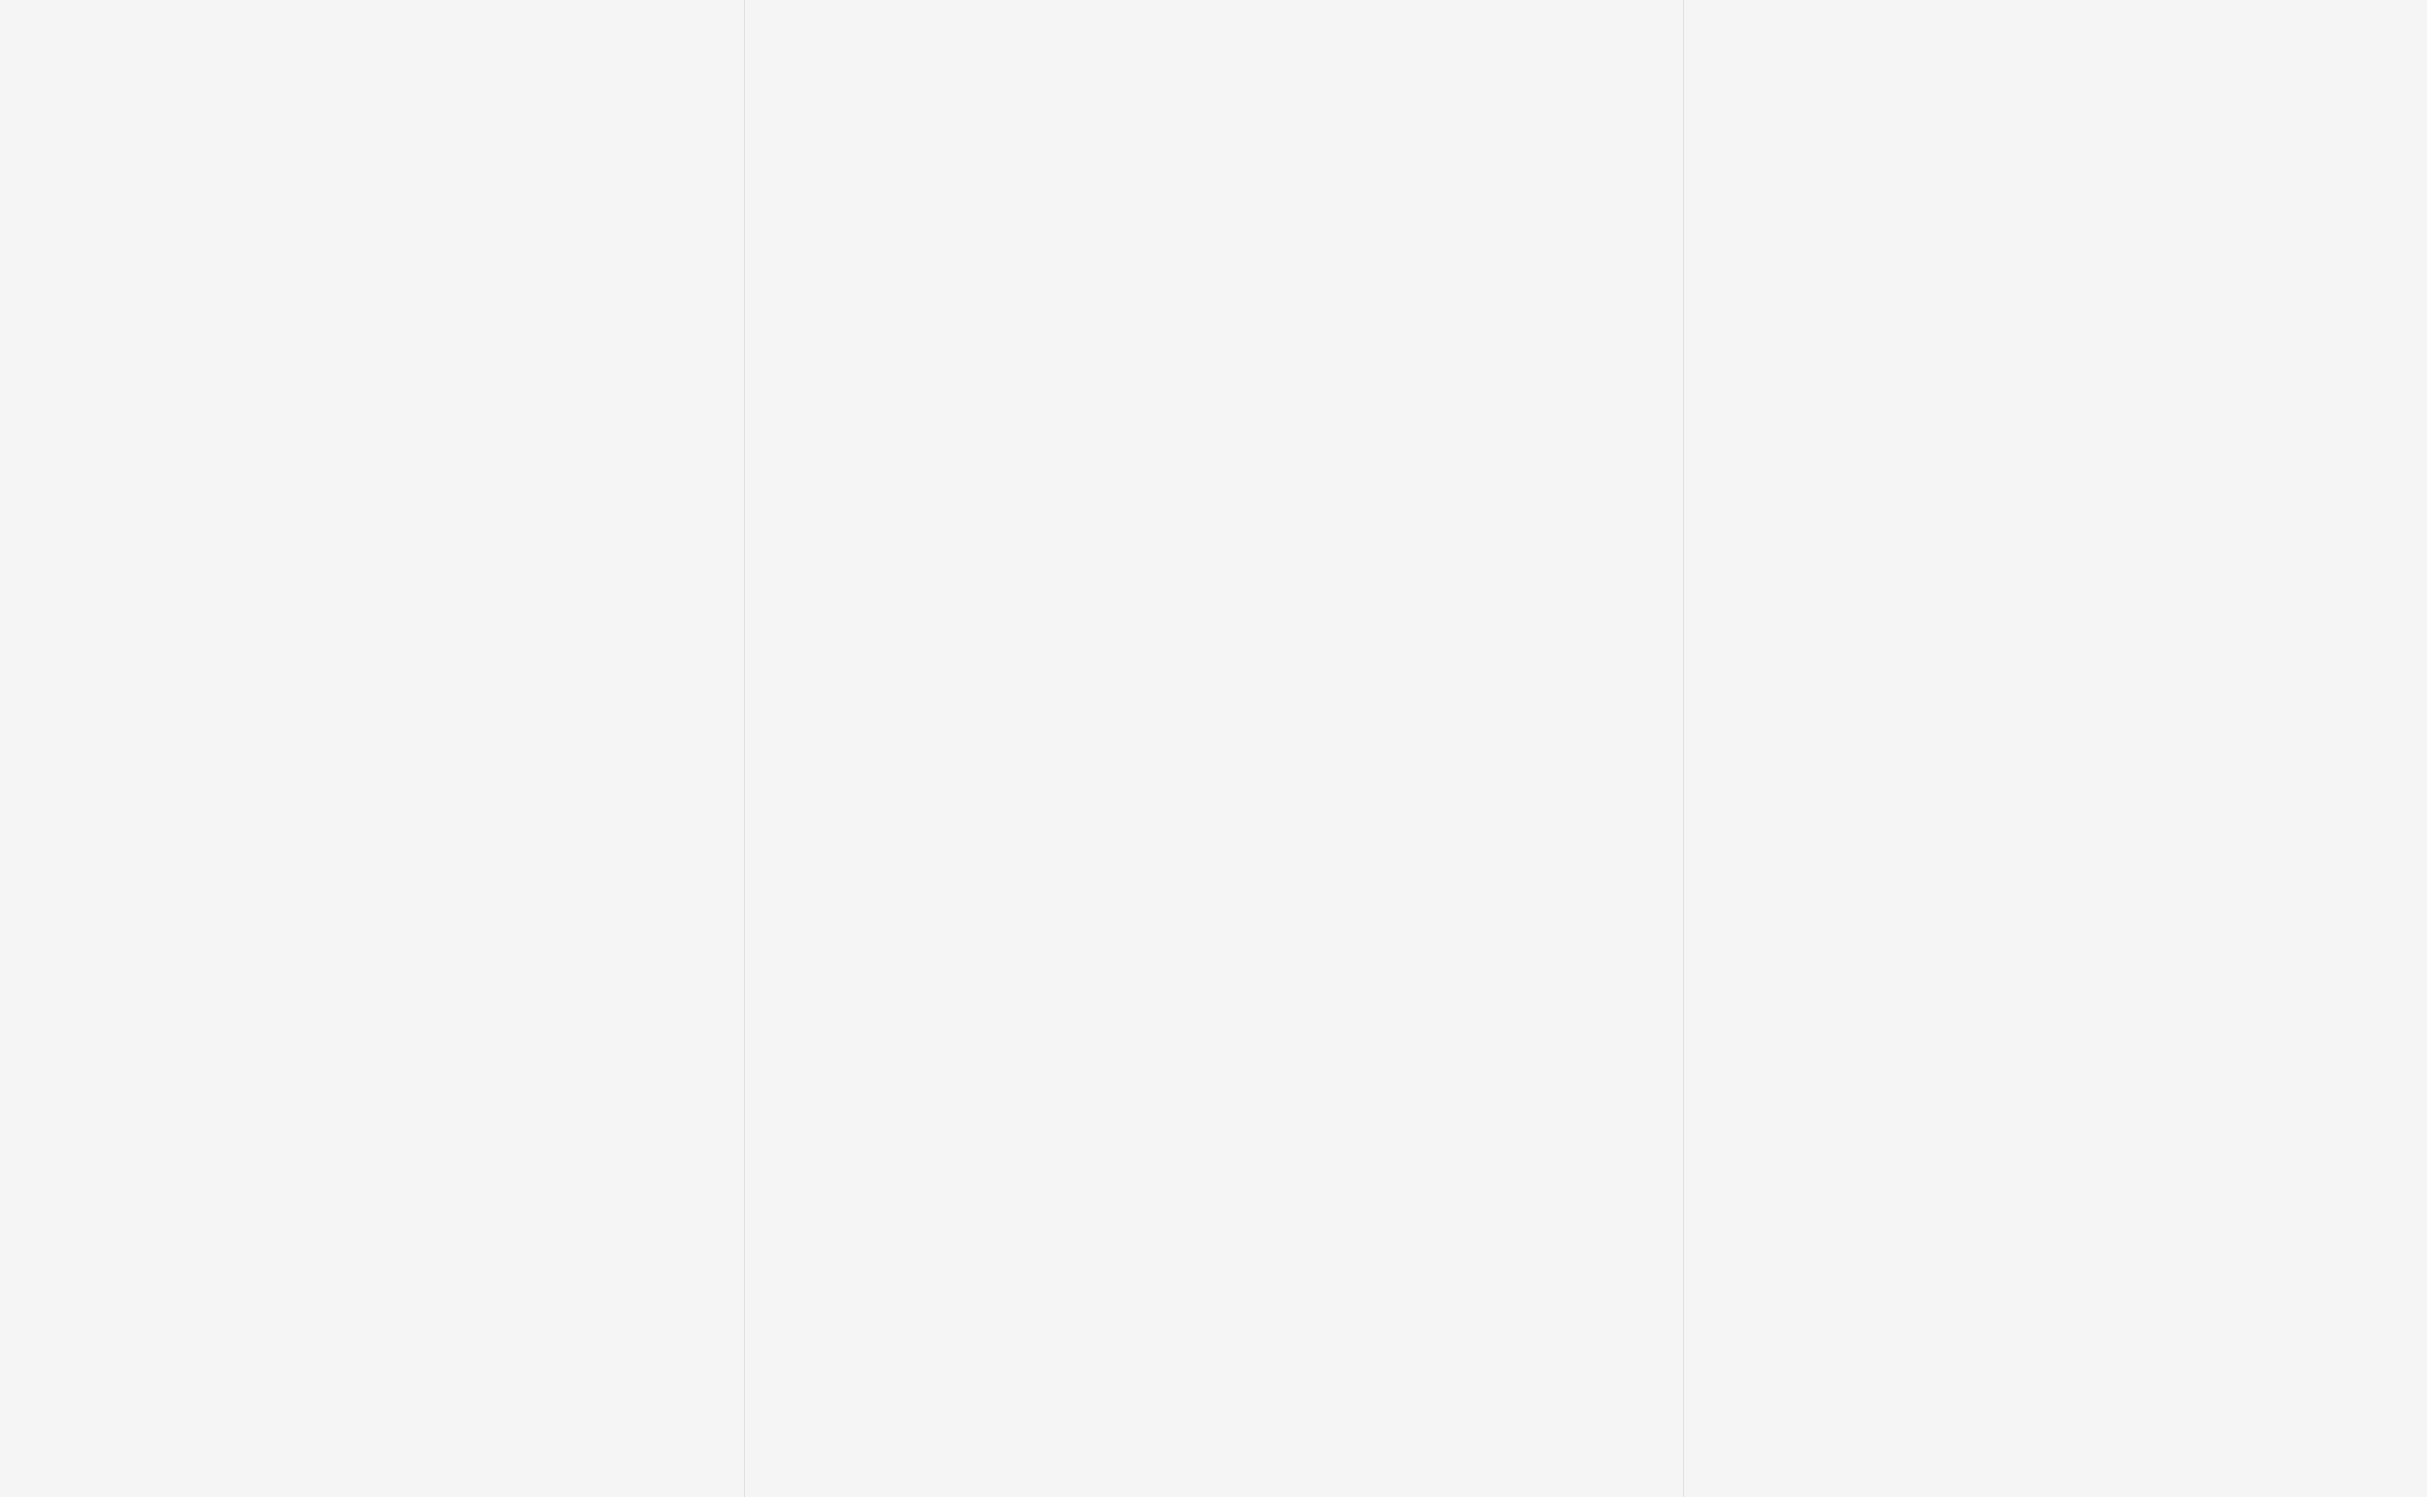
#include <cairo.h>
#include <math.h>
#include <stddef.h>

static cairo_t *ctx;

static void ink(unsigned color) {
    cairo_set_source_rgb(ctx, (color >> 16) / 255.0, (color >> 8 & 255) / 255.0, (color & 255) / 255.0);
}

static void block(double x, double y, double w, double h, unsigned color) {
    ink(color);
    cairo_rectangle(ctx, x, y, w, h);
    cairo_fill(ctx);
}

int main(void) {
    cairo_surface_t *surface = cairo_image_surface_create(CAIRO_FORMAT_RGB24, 2427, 1497);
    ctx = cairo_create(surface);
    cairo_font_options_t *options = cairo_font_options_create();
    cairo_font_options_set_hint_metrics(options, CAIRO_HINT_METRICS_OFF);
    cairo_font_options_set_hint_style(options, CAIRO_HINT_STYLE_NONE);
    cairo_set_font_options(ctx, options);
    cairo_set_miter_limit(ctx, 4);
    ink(0xf5f5f5);
    cairo_paint(ctx);
    block(1683, 0, 1, 1497, 0xe0e0e0);
    block(744, 0, 1, 1497, 0xe0e0e0);
    cairo_surface_write_to_png(surface, "screenshot.png");
    cairo_font_options_destroy(options);
    cairo_destroy(ctx);
    cairo_surface_destroy(surface);
    return 0;
}
